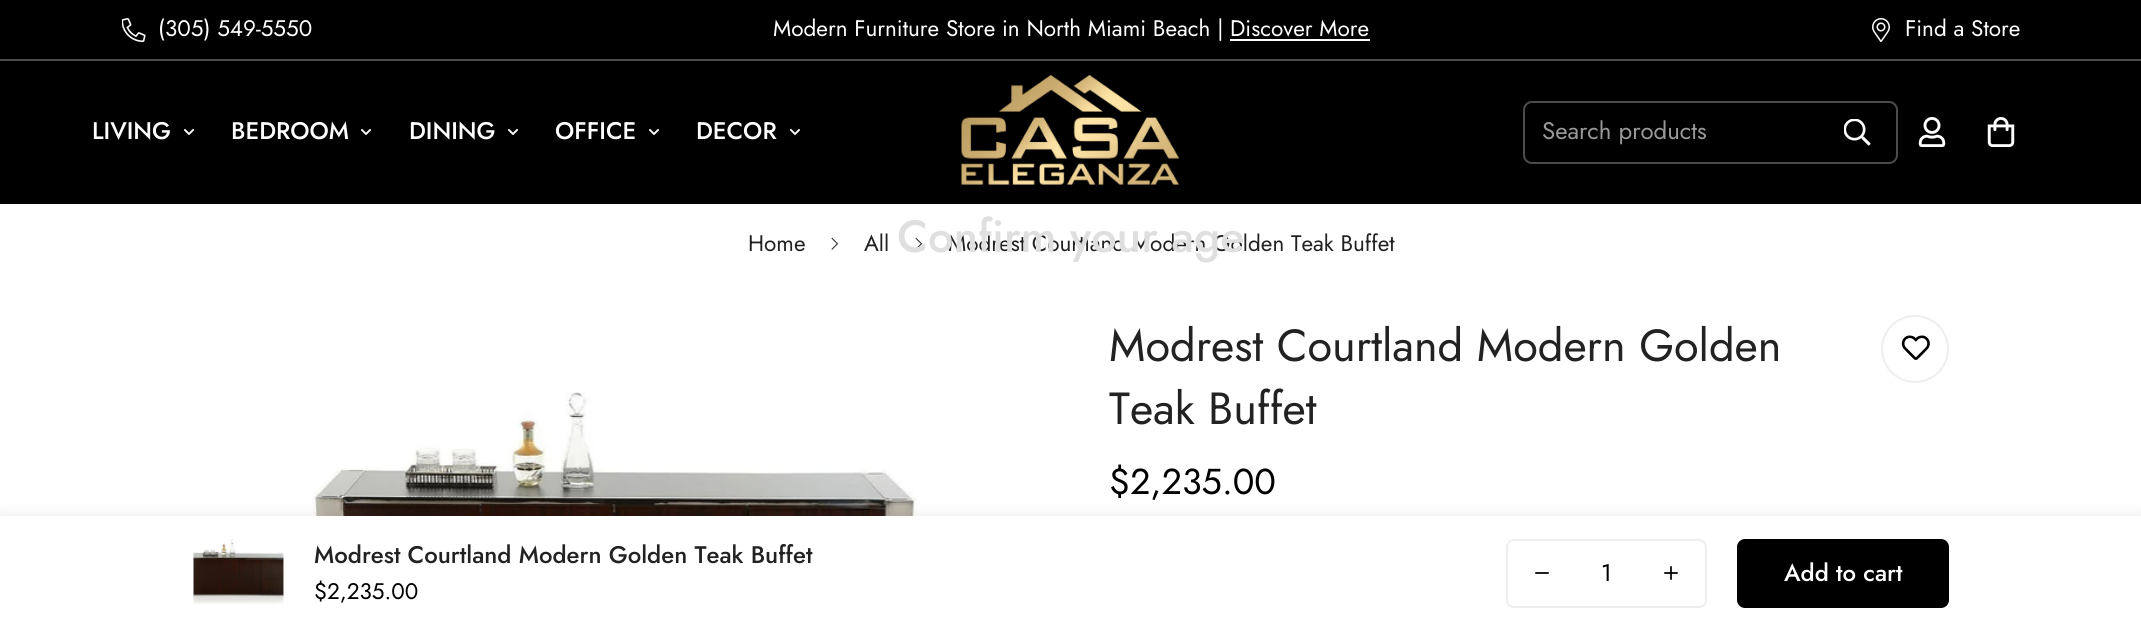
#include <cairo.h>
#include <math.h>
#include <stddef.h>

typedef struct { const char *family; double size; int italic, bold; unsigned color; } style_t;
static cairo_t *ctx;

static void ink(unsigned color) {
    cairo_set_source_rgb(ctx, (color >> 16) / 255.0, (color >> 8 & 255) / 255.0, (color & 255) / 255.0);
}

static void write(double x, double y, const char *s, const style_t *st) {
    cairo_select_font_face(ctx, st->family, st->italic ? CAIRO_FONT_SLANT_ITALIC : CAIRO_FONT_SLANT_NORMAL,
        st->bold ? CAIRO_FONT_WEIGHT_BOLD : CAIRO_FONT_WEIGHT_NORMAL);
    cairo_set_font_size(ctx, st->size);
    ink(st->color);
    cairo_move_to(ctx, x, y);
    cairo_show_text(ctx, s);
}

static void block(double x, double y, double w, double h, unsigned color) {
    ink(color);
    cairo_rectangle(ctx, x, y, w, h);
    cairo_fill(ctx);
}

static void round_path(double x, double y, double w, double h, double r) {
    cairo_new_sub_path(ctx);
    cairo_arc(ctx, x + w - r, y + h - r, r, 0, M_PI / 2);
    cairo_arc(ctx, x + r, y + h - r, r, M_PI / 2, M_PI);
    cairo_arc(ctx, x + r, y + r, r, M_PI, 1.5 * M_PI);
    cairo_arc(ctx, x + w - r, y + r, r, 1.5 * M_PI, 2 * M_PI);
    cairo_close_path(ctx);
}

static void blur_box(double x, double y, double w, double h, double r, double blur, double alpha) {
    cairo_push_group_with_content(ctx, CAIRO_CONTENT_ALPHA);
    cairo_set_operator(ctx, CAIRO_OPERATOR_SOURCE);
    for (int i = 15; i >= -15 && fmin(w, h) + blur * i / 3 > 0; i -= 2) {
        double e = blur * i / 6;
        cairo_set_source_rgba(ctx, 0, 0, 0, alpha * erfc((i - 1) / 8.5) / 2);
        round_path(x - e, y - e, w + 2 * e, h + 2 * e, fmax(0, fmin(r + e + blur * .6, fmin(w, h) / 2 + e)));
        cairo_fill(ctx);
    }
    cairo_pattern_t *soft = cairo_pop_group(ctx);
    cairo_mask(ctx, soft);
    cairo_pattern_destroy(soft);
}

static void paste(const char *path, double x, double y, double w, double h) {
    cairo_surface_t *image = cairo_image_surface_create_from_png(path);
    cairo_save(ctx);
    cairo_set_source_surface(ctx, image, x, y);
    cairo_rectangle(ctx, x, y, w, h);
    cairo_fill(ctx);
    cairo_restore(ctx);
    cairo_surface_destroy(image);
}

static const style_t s1 = {"Jost", 22.5, 0, 0, 0xffffff};
static const style_t s2 = {"Jost Medium", 24, 0, 0, 0xffffff};
static const style_t s3 = {"Jost", 24, 0, 0, 0x999999};
static const style_t s4 = {"Jost", 22.5, 0, 0, 0x222222};
static const style_t s5 = {"Jost Medium", 45, 0, 0, 0xdfdfdf};
static const style_t s6 = {"Jost", 45, 0, 0, 0x222222};
static const style_t s7 = {"Jost", 36, 0, 0, 0x000000};
static const style_t s8 = {"Jost Medium", 24, 0, 0, 0x222222};
static const style_t s9 = {"Jost", 22.5, 0, 0, 0x000000};
static const style_t s10 = {"Jost", 24, 0, 0, 0x000000};

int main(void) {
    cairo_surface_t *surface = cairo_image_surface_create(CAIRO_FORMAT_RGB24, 2141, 629);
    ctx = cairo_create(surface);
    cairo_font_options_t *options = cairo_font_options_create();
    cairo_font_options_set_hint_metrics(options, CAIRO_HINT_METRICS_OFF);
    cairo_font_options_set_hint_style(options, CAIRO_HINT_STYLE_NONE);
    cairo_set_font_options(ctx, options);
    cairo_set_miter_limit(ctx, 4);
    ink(0xffffff);
    cairo_paint(ctx);
    block(0, 0, 2141, 59, 0x000000);
    block(0, 59, 2141, 2, 0x4b4b4b);
    paste("pic1.png", 122, 18, 24, 24);
    write(158, 36, "(305) 549-5550", &s1);
    write(773, 36, "Modern Furniture Store in North Miami Beach | Discover More", &s1);
    block(1230, 39, 140, 2, 0xffffff);
    paste("pic2.png", 1872, 18, 18, 24);
    write(1905, 36, "Find a Store", &s1);
    block(0, 61, 2141, 143, 0x000000);
    write(92, 139, "LIVING", &s2);
    paste("pic3.png", 184, 129, 10, 6);
    write(231, 139, "BEDROOM", &s2);
    paste("pic3.png", 361, 129, 10, 6);
    write(409, 139, "DINING", &s2);
    paste("pic3.png", 508, 129, 10, 6);
    write(555, 139, "OFFICE", &s2);
    paste("pic3.png", 649, 129, 10, 6);
    write(696, 139, "DECOR", &s2);
    paste("pic3.png", 790, 129, 10, 6);
    paste("pic4.png", 961, 75, 218, 110);
    round_path(1524, 102, 373, 61, 8);
    ink(0x4b4b4b);
    cairo_stroke(ctx);
    write(1542, 139, "Search products", &s3);
    paste("pic5.png", 1844, 119, 27, 27);
    paste("pic6.png", 1918, 117, 28, 30);
    paste("pic7.png", 1987, 117, 28, 30);
    paste("pic8.png", 915, 237, 7, 13);
    write(948, 251, "Modrest Courtland Modern Golden Teak Buffet", &s4);
    write(897, 252, "Confirm your age", &s5);
    write(748, 251, "Home", &s4);
    paste("pic8.png", 831, 237, 7, 13);
    write(864, 251, "All", &s4);
    paste("pic9.png", 312, 392, 605, 124);
    write(1109, 361, "Modrest Courtland Modern Golden", &s6);
    write(1109, 424, "Teak Buffet", &s6);
    cairo_new_path(ctx);
    cairo_arc(ctx, 1915, 349, 33, 0, 2 * M_PI);
    ink(0xeeeeee);
    cairo_stroke(ctx);
    paste("pic10.png", 1901, 335, 29, 25);
    write(1109, 494, "$2,235.00", &s7);
    ink(0x000000);
    blur_box(0, 516, 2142, 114, 0, 7.5, 0.09);
    block(0, 516, 2141, 113, 0xffffff);
    paste("pic11.png", 193, 539, 91, 66);
    write(314, 563, "Modrest Courtland Modern Golden Teak Buffet", &s8);
    write(314, 599, "$2,235.00", &s9);
    round_path(1507, 540, 199, 67, 7);
    ink(0xeeeeee);
    cairo_stroke(ctx);
    paste("pic12.png", 1535, 572, 14, 2);
    write(1601, 581, "1", &s10);
    paste("pic13.png", 1664, 566, 14, 14);
    round_path(1738, 540, 210, 67, 7);
    cairo_fill_preserve(ctx);
    cairo_stroke(ctx);
    write(1784, 581, "Add to cart", &s2);
    cairo_surface_write_to_png(surface, "screenshot.png");
    cairo_font_options_destroy(options);
    cairo_destroy(ctx);
    cairo_surface_destroy(surface);
    return 0;
}
